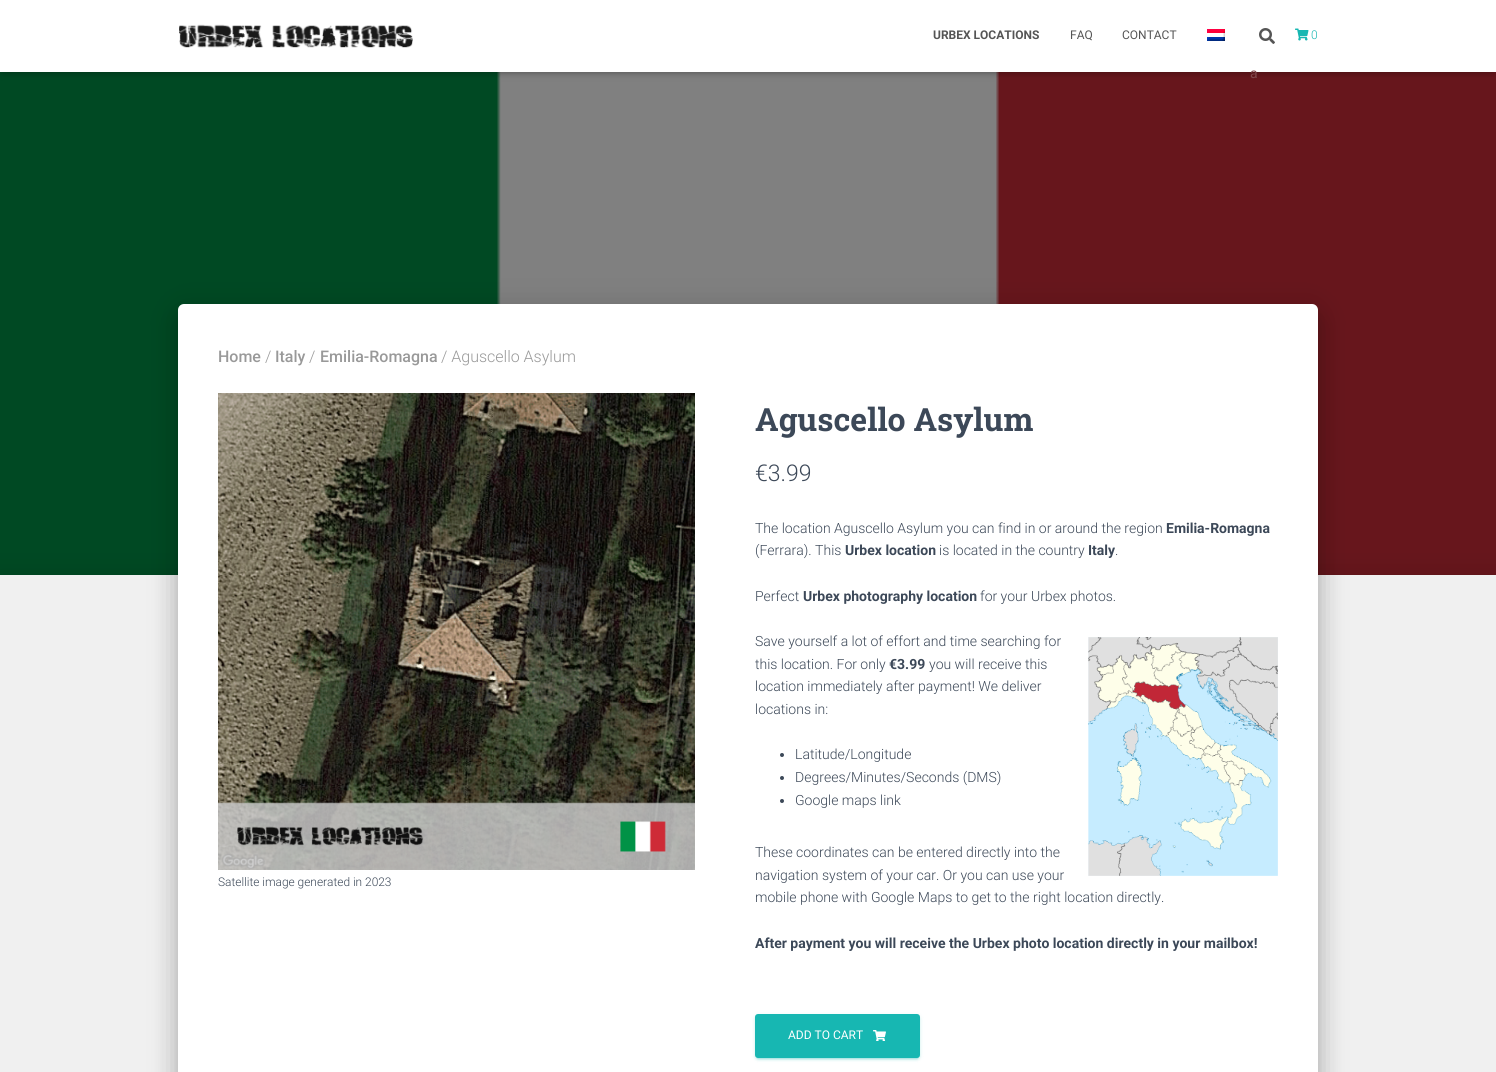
#include <cairo.h>
#include <math.h>
#include <stddef.h>

typedef struct { const char *family; double size; int italic, bold; unsigned color; } style_t;
static cairo_t *ctx;

static void ink(unsigned color) {
    cairo_set_source_rgb(ctx, (color >> 16) / 255.0, (color >> 8 & 255) / 255.0, (color & 255) / 255.0);
}

static void write(double x, double y, const char *s, const style_t *st) {
    cairo_select_font_face(ctx, st->family, st->italic ? CAIRO_FONT_SLANT_ITALIC : CAIRO_FONT_SLANT_NORMAL,
        st->bold ? CAIRO_FONT_WEIGHT_BOLD : CAIRO_FONT_WEIGHT_NORMAL);
    cairo_set_font_size(ctx, st->size);
    ink(st->color);
    cairo_move_to(ctx, x, y);
    cairo_show_text(ctx, s);
}

static void block(double x, double y, double w, double h, unsigned color) {
    ink(color);
    cairo_rectangle(ctx, x, y, w, h);
    cairo_fill(ctx);
}

static void round_path(double x, double y, double w, double h, double r) {
    cairo_new_sub_path(ctx);
    cairo_arc(ctx, x + w - r, y + h - r, r, 0, M_PI / 2);
    cairo_arc(ctx, x + r, y + h - r, r, M_PI / 2, M_PI);
    cairo_arc(ctx, x + r, y + r, r, M_PI, 1.5 * M_PI);
    cairo_arc(ctx, x + w - r, y + r, r, 1.5 * M_PI, 2 * M_PI);
    cairo_close_path(ctx);
}

static void blur_box(double x, double y, double w, double h, double r, double blur, double alpha) {
    cairo_push_group_with_content(ctx, CAIRO_CONTENT_ALPHA);
    cairo_set_operator(ctx, CAIRO_OPERATOR_SOURCE);
    for (int i = 15; i >= -15 && fmin(w, h) + blur * i / 3 > 0; i -= 2) {
        double e = blur * i / 6;
        cairo_set_source_rgba(ctx, 0, 0, 0, alpha * erfc((i - 1) / 8.5) / 2);
        round_path(x - e, y - e, w + 2 * e, h + 2 * e, fmax(0, fmin(r + e + blur * .6, fmin(w, h) / 2 + e)));
        cairo_fill(ctx);
    }
    cairo_pattern_t *soft = cairo_pop_group(ctx);
    cairo_mask(ctx, soft);
    cairo_pattern_destroy(soft);
}

static void paste(const char *path, double x, double y, double w, double h) {
    cairo_surface_t *image = cairo_image_surface_create_from_png(path);
    cairo_save(ctx);
    cairo_set_source_surface(ctx, image, x, y);
    cairo_rectangle(ctx, x, y, w, h);
    cairo_fill(ctx);
    cairo_restore(ctx);
    cairo_surface_destroy(image);
}

static const style_t s1 = {"Roboto", 12, 0, 1, 0x555555};
static const style_t s2 = {"Roboto", 12, 0, 0, 0x555555};
static const style_t s3 = {"Roboto", 14, 0, 0, 0x80474b};
static const style_t s4 = {"Roboto Light", 12, 0, 0, 0x17b7b2};
static const style_t s5 = {"Roboto Medium", 16, 0, 0, 0x999999};
static const style_t s6 = {"Roboto Light", 16, 0, 0, 0x999999};
static const style_t s7 = {"Roboto Light", 11.9, 0, 0, 0x3c4858};
static const style_t s8 = {"Roboto Slab", 32, 0, 1, 0x3c4858};
static const style_t s9 = {"Roboto Light", 23, 0, 0, 0x3c4858};
static const style_t s10 = {"Roboto Light", 14, 0, 0, 0x3c4858};
static const style_t s11 = {"Roboto", 14, 0, 1, 0x3c4858};
static const style_t s12 = {"Roboto", 12, 0, 0, 0xffffff};

int main(void) {
    cairo_surface_t *surface = cairo_image_surface_create(CAIRO_FORMAT_RGB24, 1496, 1072);
    ctx = cairo_create(surface);
    cairo_font_options_t *options = cairo_font_options_create();
    cairo_font_options_set_hint_metrics(options, CAIRO_HINT_METRICS_OFF);
    cairo_font_options_set_hint_style(options, CAIRO_HINT_STYLE_NONE);
    cairo_set_font_options(ctx, options);
    cairo_set_miter_limit(ctx, 4);
    ink(0xffffff);
    cairo_paint(ctx);
    paste("pic5.png", 0, 72, 1496, 503);
    ink(0x000000);
    blur_box(2, 6, 1492, 68, 0, 2.5, 0.1);
    blur_box(0, 1, 1496, 72, 0, 5, 0.12);
    blur_box(6, 7, 1484, 60, 0, 5, 0.42);
    block(0, 0, 1496, 72, 0xffffff);
    paste("pic1.png", 179, 24, 234, 24);
    write(933, 39, "URBEX LOCATIONS", &s1);
    write(1070, 39, "FAQ", &s2);
    write(1122, 39, "CONTACT", &s2);
    paste("pic2.png", 1207, 29, 18, 12);
    paste("pic3.png", 1259, 28, 16, 16);
    write(1250, 78, "a", &s3);
    paste("pic4.png", 1295, 28, 14, 13);
    write(1311, 39, "0", &s4);
    ink(0x000000);
    blur_box(-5, 576, 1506, 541, 0, 15, 0.12);
    block(0, 575, 1496, 497, 0xf0f0f0);
    ink(0x000000);
    blur_box(183, 317, 1130, 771, 1, 5, 0.2);
    blur_box(173, 305, 1150, 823, 11, 15, 0.12);
    blur_box(176, 318, 1144, 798, 8, 12, 0.14);
    ink(0xffffff);
    round_path(178, 304, 1140, 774, 6);
    cairo_fill(ctx);
    write(218, 362, "Home", &s5);
    write(265, 362, "/", &s6);
    write(275, 362, "Italy", &s5);
    write(309, 362, "/", &s6);
    write(320, 362, "Emilia-Romagna", &s5);
    write(441, 362, "/ Aguscello Asylum", &s6);
    paste("pic6.png", 218, 393, 477, 477);
    write(218, 886, "Satellite image generated in 2023", &s7);
    write(755, 431, "Aguscello Asylum", &s8);
    write(755, 481, "€3.99", &s9);
    write(755, 533, "The location Aguscello Asylum you can find in or around the region", &s10);
    write(1166, 533, "Emilia-Romagna", &s11);
    write(755, 555, "(Ferrara). This", &s10);
    write(845, 555, "Urbex location", &s11);
    write(939, 555, "is located in the country", &s10);
    write(1088, 555, "Italy", &s11);
    write(1115, 555, ".", &s10);
    write(755, 601, "Perfect", &s10);
    write(803, 601, "Urbex photography location", &s11);
    write(980, 601, "for your Urbex photos.", &s10);
    write(755, 646, "Save yourself a lot of effort and time searching for", &s10);
    paste("pic7.png", 1088, 637, 190, 239);
    write(755, 669, "this location. For only", &s10);
    write(889, 669, "€3.99", &s11);
    write(929, 669, "you will receive this", &s10);
    write(755, 691, "location immediately after payment! We deliver", &s10);
    write(755, 714, "locations in:", &s10);
    cairo_new_path(ctx);
    cairo_arc(ctx, 782, 755, 2, 0, 2 * M_PI);
    cairo_fill(ctx);
    write(795, 759, "Latitude/Longitude", &s10);
    cairo_new_path(ctx);
    cairo_arc(ctx, 782, 778, 2, 0, 2 * M_PI);
    cairo_fill(ctx);
    write(795, 782, "Degrees/Minutes/Seconds (DMS)", &s10);
    cairo_new_path(ctx);
    cairo_arc(ctx, 782, 801, 2, 0, 2 * M_PI);
    cairo_fill(ctx);
    write(795, 805, "Google maps link", &s10);
    write(755, 857, "These coordinates can be entered directly into the", &s10);
    write(755, 880, "navigation system of your car. Or you can use your", &s10);
    write(755, 902, "mobile phone with Google Maps to get to the right location directly.", &s10);
    write(755, 948, "After payment you will receive the Urbex photo location directly in your mailbox!", &s11);
    ink(0x17b7b2);
    blur_box(755, 1015, 165, 44, 3, 2.5, 0.12);
    blur_box(757, 1019, 161, 40, 1, 0.5, 0.2);
    blur_box(755, 1016, 165, 44, 3, 1, 0.14);
    ink(0x17b7b2);
    round_path(755, 1014, 165, 44, 3);
    cairo_fill(ctx);
    write(788, 1039, "ADD TO CART", &s12);
    paste("pic8.png", 873, 1030, 13, 11);
    cairo_surface_write_to_png(surface, "screenshot.png");
    cairo_font_options_destroy(options);
    cairo_destroy(ctx);
    cairo_surface_destroy(surface);
    return 0;
}
